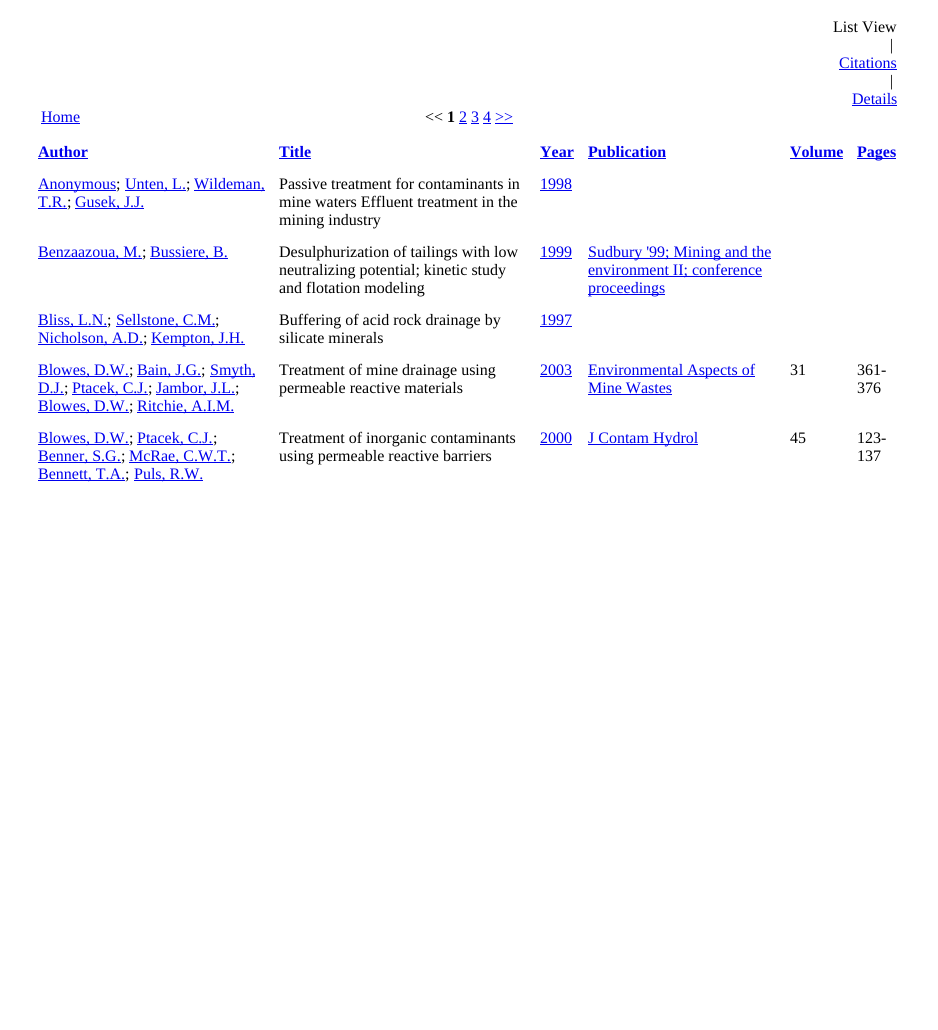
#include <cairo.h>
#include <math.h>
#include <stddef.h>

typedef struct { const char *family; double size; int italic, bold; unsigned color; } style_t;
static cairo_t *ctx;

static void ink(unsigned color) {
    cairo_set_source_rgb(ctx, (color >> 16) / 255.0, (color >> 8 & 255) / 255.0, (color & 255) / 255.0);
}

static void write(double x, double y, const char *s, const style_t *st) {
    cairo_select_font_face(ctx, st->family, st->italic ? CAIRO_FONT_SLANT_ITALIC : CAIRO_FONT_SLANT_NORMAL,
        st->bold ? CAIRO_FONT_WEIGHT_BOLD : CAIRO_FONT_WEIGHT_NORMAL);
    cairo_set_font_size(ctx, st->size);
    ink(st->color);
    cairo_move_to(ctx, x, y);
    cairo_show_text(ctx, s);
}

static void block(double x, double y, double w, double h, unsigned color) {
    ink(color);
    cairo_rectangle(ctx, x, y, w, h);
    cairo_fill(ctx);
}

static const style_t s1 = {"Liberation Serif", 16, 0, 0, 0x000000};
static const style_t s2 = {"Liberation Serif", 16, 0, 0, 0x0000ee};
static const style_t s3 = {"Liberation Serif", 16, 0, 1, 0x000000};
static const style_t s4 = {"Liberation Serif", 16, 0, 1, 0x0000ee};

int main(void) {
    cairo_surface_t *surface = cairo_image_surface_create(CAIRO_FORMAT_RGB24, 938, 1030);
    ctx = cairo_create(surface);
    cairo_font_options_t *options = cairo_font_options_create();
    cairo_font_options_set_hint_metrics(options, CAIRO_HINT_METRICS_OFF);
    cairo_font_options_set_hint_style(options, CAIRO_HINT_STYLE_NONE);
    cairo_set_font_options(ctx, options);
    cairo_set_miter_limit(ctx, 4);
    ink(0xffffff);
    cairo_paint(ctx);
    write(833, 32, "List View", &s1);
    write(890, 50, "|", &s1);
    write(839, 68, "Citations", &s2);
    block(839, 69, 58, 1, 0x0000ee);
    write(890, 86, "|", &s1);
    write(852, 104, "Details", &s2);
    block(852, 105, 45, 1, 0x0000ee);
    write(41, 122, "Home", &s2);
    block(41, 123, 39, 1, 0x0000ee);
    write(425, 122, "<<", &s1);
    write(447, 122, "1", &s3);
    write(459, 122, "2 3 4 >>", &s2);
    block(459, 123, 8, 1, 0x0000ee);
    block(471, 123, 8, 1, 0x0000ee);
    block(483, 123, 8, 1, 0x0000ee);
    block(495, 123, 18, 1, 0x0000ee);
    write(38, 157, "Author", &s4);
    block(38, 158, 50, 1, 0x0000ee);
    write(279, 157, "Title", &s4);
    block(279, 158, 32, 1, 0x0000ee);
    write(540, 157, "Year", &s4);
    block(540, 158, 34, 1, 0x0000ee);
    write(588, 157, "Publication", &s4);
    block(588, 158, 78, 1, 0x0000ee);
    write(790, 157, "Volume", &s4);
    block(790, 158, 53, 1, 0x0000ee);
    block(857, 158, 39, 1, 0x0000ee);
    write(857, 157, "Pages", &s4);
    block(38, 190, 78, 1, 0x0000ee);
    write(38, 189, "Anonymous", &s2);
    write(116, 189, ";", &s1);
    block(125, 190, 61, 1, 0x0000ee);
    write(125, 189, "Unten, L.", &s2);
    write(186, 189, ";", &s1);
    block(194, 190, 71, 1, 0x0000ee);
    write(194, 189, "Wildeman,", &s2);
    write(38, 207, "T.R.", &s2);
    write(67, 207, ";", &s1);
    block(38, 208, 29, 1, 0x0000ee);
    block(75, 208, 69, 1, 0x0000ee);
    write(75, 207, "Gusek, J.J.", &s2);
    write(279, 189, "Passive treatment for contaminants in", &s1);
    write(279, 207, "mine waters Effluent treatment in the", &s1);
    write(279, 225, "mining industry", &s1);
    write(540, 189, "1998", &s2);
    block(540, 190, 32, 1, 0x0000ee);
    block(38, 258, 104, 1, 0x0000ee);
    write(38, 257, "Benzaazoua, M.", &s2);
    write(142, 257, ";", &s1);
    block(150, 258, 78, 1, 0x0000ee);
    write(150, 257, "Bussiere, B.", &s2);
    write(279, 257, "Desulphurization of tailings with low", &s1);
    write(279, 275, "neutralizing potential; kinetic study", &s1);
    write(279, 293, "and flotation modeling", &s1);
    write(540, 257, "1999", &s2);
    block(540, 258, 32, 1, 0x0000ee);
    block(588, 258, 183, 1, 0x0000ee);
    write(588, 257, "Sudbury '99; Mining and the", &s2);
    block(588, 276, 174, 1, 0x0000ee);
    write(588, 275, "environment II; conference", &s2);
    block(588, 294, 77, 1, 0x0000ee);
    write(588, 293, "proceedings", &s2);
    block(38, 326, 69, 1, 0x0000ee);
    write(38, 325, "Bliss, L.N.", &s2);
    write(107, 325, ";", &s1);
    block(116, 326, 99, 1, 0x0000ee);
    write(116, 325, "Sellstone, C.M.", &s2);
    write(215, 325, ";", &s1);
    block(38, 344, 105, 1, 0x0000ee);
    write(38, 343, "Nicholson, A.D.", &s2);
    write(143, 343, ";", &s1);
    block(151, 344, 94, 1, 0x0000ee);
    write(151, 343, "Kempton, J.H.", &s2);
    write(279, 325, "Buffering of acid rock drainage by", &s1);
    write(279, 343, "silicate minerals", &s1);
    write(540, 325, "1997", &s2);
    block(540, 326, 32, 1, 0x0000ee);
    block(38, 376, 91, 1, 0x0000ee);
    write(38, 375, "Blowes, D.W.", &s2);
    write(129, 375, ";", &s1);
    block(137, 376, 64, 1, 0x0000ee);
    write(137, 375, "Bain, J.G.", &s2);
    write(201, 375, ";", &s1);
    block(210, 376, 45, 1, 0x0000ee);
    write(210, 375, "Smyth,", &s2);
    write(38, 393, "D.J.", &s2);
    write(64, 393, ";", &s1);
    block(38, 394, 26, 1, 0x0000ee);
    block(72, 394, 76, 1, 0x0000ee);
    write(72, 393, "Ptacek, C.J.", &s2);
    write(148, 393, ";", &s1);
    block(156, 394, 79, 1, 0x0000ee);
    write(156, 393, "Jambor, J.L.", &s2);
    write(235, 393, ";", &s1);
    block(38, 412, 91, 1, 0x0000ee);
    write(38, 411, "Blowes, D.W.", &s2);
    write(129, 411, ";", &s1);
    block(137, 412, 97, 1, 0x0000ee);
    write(137, 411, "Ritchie, A.I.M.", &s2);
    write(279, 375, "Treatment of mine drainage using", &s1);
    write(279, 393, "permeable reactive materials", &s1);
    write(540, 375, "2003", &s2);
    block(540, 376, 32, 1, 0x0000ee);
    block(588, 376, 167, 1, 0x0000ee);
    write(588, 375, "Environmental Aspects of", &s2);
    write(588, 393, "Mine Wastes", &s2);
    block(588, 394, 84, 1, 0x0000ee);
    write(790, 375, "31", &s1);
    write(857, 375, "361-", &s1);
    write(857, 393, "376", &s1);
    block(38, 444, 91, 1, 0x0000ee);
    write(38, 443, "Blowes, D.W.", &s2);
    write(129, 443, ";", &s1);
    block(137, 444, 76, 1, 0x0000ee);
    write(137, 443, "Ptacek, C.J.", &s2);
    write(213, 443, ";", &s1);
    block(38, 462, 83, 1, 0x0000ee);
    write(38, 461, "Benner, S.G.", &s2);
    write(121, 461, ";", &s1);
    block(129, 462, 102, 1, 0x0000ee);
    write(129, 461, "McRae, C.W.T.", &s2);
    write(231, 461, ";", &s1);
    block(38, 480, 87, 1, 0x0000ee);
    write(38, 479, "Bennett, T.A.", &s2);
    write(125, 479, ";", &s1);
    block(134, 480, 69, 1, 0x0000ee);
    write(134, 479, "Puls, R.W.", &s2);
    write(279, 443, "Treatment of inorganic contaminants", &s1);
    write(279, 461, "using permeable reactive barriers", &s1);
    write(540, 443, "2000", &s2);
    block(540, 444, 32, 1, 0x0000ee);
    block(588, 444, 110, 1, 0x0000ee);
    write(588, 443, "J Contam Hydrol", &s2);
    write(790, 443, "45", &s1);
    write(857, 443, "123-", &s1);
    write(857, 461, "137", &s1);
    cairo_surface_write_to_png(surface, "screenshot.png");
    cairo_font_options_destroy(options);
    cairo_destroy(ctx);
    cairo_surface_destroy(surface);
    return 0;
}
